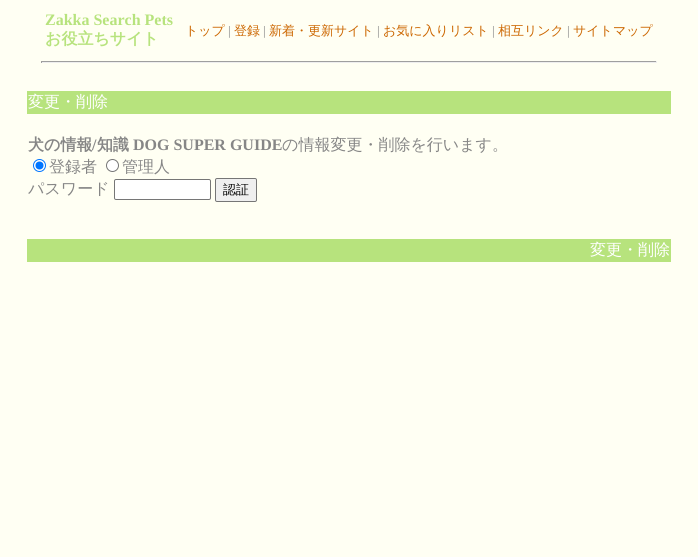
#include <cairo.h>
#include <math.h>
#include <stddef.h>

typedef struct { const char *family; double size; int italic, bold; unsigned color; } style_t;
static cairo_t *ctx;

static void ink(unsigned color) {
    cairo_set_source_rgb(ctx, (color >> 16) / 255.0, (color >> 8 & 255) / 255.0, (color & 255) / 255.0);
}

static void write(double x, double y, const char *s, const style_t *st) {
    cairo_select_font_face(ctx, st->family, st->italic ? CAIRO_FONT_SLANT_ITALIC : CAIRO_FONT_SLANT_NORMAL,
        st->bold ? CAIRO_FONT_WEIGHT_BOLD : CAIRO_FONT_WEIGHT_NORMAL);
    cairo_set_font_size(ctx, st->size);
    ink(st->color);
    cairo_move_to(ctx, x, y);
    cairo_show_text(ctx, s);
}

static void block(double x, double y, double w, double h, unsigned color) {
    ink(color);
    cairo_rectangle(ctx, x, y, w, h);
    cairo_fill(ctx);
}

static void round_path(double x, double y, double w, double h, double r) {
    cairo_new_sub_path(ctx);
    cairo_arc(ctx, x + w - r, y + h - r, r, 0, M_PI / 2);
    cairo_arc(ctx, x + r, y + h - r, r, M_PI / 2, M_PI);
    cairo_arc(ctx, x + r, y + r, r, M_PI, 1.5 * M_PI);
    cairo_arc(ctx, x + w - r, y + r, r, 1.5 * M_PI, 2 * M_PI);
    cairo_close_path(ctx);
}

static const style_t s1 = {"Liberation Serif", 16, 0, 1, 0xb7e37d};
static const style_t s2 = {"WenQuanYi Zen Hei", 16, 0, 1, 0xb7e37d};
static const style_t s3 = {"WenQuanYi Zen Hei Medium", 13, 0, 0, 0xcc6600};
static const style_t s4 = {"Liberation Serif", 13, 0, 0, 0x868686};
static const style_t s5 = {"WenQuanYi Zen Hei Medium", 16, 0, 0, 0xffffff};
static const style_t s6 = {"WenQuanYi Zen Hei", 16, 0, 1, 0x868686};
static const style_t s7 = {"Liberation Serif", 16, 0, 1, 0x868686};
static const style_t s8 = {"WenQuanYi Zen Hei Medium", 16, 0, 0, 0x868686};
static const style_t s9 = {"WenQuanYi Zen Hei Medium", 13, 0, 0, 0x000000};

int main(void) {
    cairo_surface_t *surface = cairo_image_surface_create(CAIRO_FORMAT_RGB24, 698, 557);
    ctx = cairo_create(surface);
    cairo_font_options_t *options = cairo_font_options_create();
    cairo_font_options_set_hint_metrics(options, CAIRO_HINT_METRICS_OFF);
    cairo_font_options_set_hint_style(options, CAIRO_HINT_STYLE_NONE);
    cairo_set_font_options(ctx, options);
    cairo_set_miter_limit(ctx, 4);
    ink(0xfffff3);
    cairo_paint(ctx);
    write(45, 25, "Zakka Search Pets", &s1);
    write(45, 44, "お役立ちサイト", &s2);
    write(185, 35, "トップ", &s3);
    write(228, 35, "|", &s4);
    write(234, 35, "登録", &s3);
    write(263, 35, "|", &s4);
    write(269, 35, "新着・更新サイト", &s3);
    write(377, 35, "|", &s4);
    write(383, 35, "お気に入りリスト", &s3);
    write(492, 35, "|", &s4);
    write(498, 35, "相互リンク", &s3);
    write(567, 35, "|", &s4);
    write(573, 35, "サイトマップ", &s3);
    block(41, 61, 616, 1, 0x9f9f9f);
    block(656, 61, 1, 2, 0xeeeeee);
    block(41, 62, 616, 1, 0xeeeeee);
    block(41, 61, 1, 2, 0x9f9f9f);
    block(27, 91, 644, 23, 0xb7e37d);
    write(28, 107, "変更・削除", &s5);
    write(28, 150, "犬の情報", &s6);
    write(92, 150, "/", &s7);
    write(97, 150, "知識", &s6);
    write(133, 150, "DOG SUPER GUIDE", &s7);
    write(282, 150, "の情報変更・削除を行います。", &s8);
    ink(0xffffff);
    cairo_new_path(ctx);
    cairo_arc(ctx, 39.5, 165.5, 6, 0, 2 * M_PI);
    cairo_fill_preserve(ctx);
    ink(0x0075ff);
    cairo_set_line_width(ctx, 1);
    cairo_stroke(ctx);
    cairo_arc(ctx, 39.5, 165.5, 4, 0, 2 * M_PI);
    cairo_fill(ctx);
    write(49, 172, "登録者", &s8);
    ink(0xffffff);
    cairo_new_path(ctx);
    cairo_arc(ctx, 112.5, 165.5, 6, 0, 2 * M_PI);
    cairo_fill_preserve(ctx);
    ink(0x767676);
    cairo_stroke(ctx);
    write(122, 172, "管理人", &s8);
    write(28, 194, "パスワード", &s8);
    ink(0xffffff);
    round_path(114.5, 179.5, 96, 20, 1.5);
    cairo_fill_preserve(ctx);
    ink(0x767676);
    cairo_stroke(ctx);
    ink(0xefefef);
    round_path(215.5, 178.5, 41, 23, 1.5);
    cairo_fill_preserve(ctx);
    ink(0x767676);
    cairo_stroke(ctx);
    write(223, 194, "認証", &s9);
    block(27, 239, 644, 23, 0xb7e37d);
    write(590, 255, "変更・削除", &s5);
    cairo_surface_write_to_png(surface, "screenshot.png");
    cairo_font_options_destroy(options);
    cairo_destroy(ctx);
    cairo_surface_destroy(surface);
    return 0;
}
